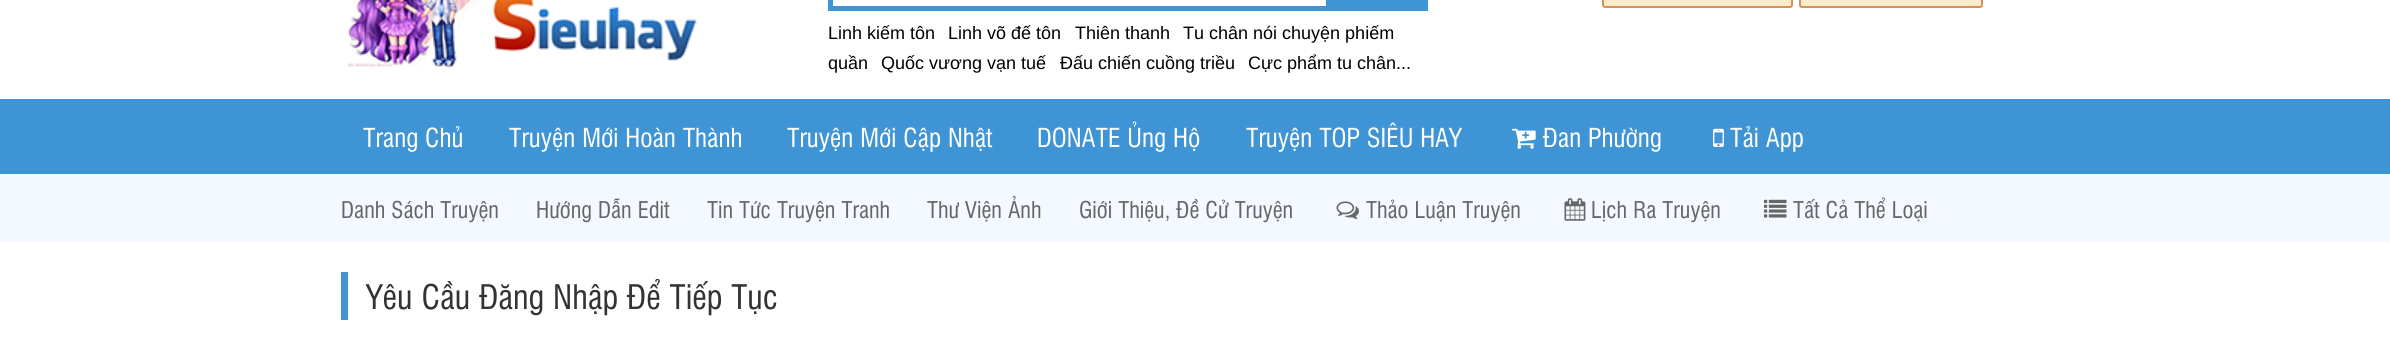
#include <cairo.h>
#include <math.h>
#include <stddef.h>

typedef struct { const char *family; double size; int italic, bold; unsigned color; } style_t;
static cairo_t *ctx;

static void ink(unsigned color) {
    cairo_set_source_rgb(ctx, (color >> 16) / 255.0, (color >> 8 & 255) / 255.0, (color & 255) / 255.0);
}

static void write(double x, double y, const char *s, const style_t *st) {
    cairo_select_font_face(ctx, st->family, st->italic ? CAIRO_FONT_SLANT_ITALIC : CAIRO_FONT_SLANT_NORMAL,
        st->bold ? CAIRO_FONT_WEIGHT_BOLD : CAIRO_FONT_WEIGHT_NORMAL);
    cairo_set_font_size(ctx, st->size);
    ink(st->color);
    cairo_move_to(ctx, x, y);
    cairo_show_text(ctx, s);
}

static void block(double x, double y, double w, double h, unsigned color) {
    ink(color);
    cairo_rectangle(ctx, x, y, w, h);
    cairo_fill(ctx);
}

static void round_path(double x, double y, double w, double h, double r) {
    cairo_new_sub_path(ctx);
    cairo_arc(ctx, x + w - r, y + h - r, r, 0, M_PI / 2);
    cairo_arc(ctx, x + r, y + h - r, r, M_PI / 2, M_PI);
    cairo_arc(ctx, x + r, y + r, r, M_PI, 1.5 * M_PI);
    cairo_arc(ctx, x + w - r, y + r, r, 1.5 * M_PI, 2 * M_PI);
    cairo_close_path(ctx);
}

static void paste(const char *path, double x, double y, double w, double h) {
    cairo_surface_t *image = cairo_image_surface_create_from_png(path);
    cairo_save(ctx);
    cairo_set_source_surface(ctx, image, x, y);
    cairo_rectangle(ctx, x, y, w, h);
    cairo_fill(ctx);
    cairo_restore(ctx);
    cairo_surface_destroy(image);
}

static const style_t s1 = {"Liberation Sans", 18, 0, 0, 0x000000};
static const style_t s2 = {"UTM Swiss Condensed", 25.5, 0, 0, 0xffffff};
static const style_t s3 = {"UTM Swiss Condensed", 22.5, 0, 0, 0x666666};
static const style_t s4 = {"UTM Swiss Condensed", 33, 0, 0, 0x333333};

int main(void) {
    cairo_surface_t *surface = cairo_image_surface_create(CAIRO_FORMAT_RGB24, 2390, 363);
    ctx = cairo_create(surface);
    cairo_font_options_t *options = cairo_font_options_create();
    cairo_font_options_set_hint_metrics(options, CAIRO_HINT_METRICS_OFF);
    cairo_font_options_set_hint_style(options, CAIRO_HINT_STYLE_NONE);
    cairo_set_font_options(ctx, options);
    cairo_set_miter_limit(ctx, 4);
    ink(0xffffff);
    cairo_paint(ctx);
    paste("pic1.png", 347, 0, 350, 68);
    block(828, 0, 600, 11, 0x3f94d5);
    block(833, 0, 493, 6, 0xffffff);
    write(828, 39, "Linh kiếm tôn", &s1);
    write(948, 39, "Linh võ đế tôn", &s1);
    write(1075, 39, "Thiên thanh", &s1);
    write(1183, 39, "Tu chân nói chuyện phiếm", &s1);
    write(828, 69, "quần", &s1);
    write(881, 69, "Quốc vương vạn tuế", &s1);
    write(1060, 69, "Đấu chiến cuồng triều", &s1);
    write(1248, 69, "Cực phẩm tu chân...", &s1);
    ink(0xfaedcd);
    round_path(1603, -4, 189, 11, 2);
    cairo_fill_preserve(ctx);
    ink(0xd78f54);
    cairo_stroke(ctx);
    ink(0xfaedcd);
    round_path(1800, -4, 182, 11, 2);
    cairo_fill_preserve(ctx);
    ink(0xd78f54);
    cairo_stroke(ctx);
    block(0, 99, 2390, 75, 0x3f94d5);
    write(363, 147, "Trang Chủ", &s2);
    write(509, 147, "Truyện Mới Hoàn Thành", &s2);
    write(787, 147, "Truyện Mới Cập Nhật", &s2);
    write(1037, 147, "DONATE Ủng Hộ", &s2);
    write(1246, 147, "Truyện TOP SIÊU HAY", &s2);
    paste("pic2.png", 1512, 128, 24, 21);
    write(1543, 147, "Đan Phường", &s2);
    paste("pic3.png", 1713, 128, 11, 19);
    write(1730, 147, "Tải App", &s2);
    block(0, 174, 2390, 68, 0xf3f9ff);
    write(341, 218, "Danh Sách Truyện", &s3);
    write(536, 218, "Hướng Dẫn Edit", &s3);
    write(707, 218, "Tin Tức Truyện Tranh", &s3);
    write(927, 218, "Thư Viện Ảnh", &s3);
    write(1079, 218, "Giới Thiệu, Đề Cử Truyện", &s3);
    paste("pic4.png", 1336, 201, 23, 19);
    write(1366, 218, "Thảo Luận Truyện", &s3);
    paste("pic5.png", 1564, 198, 22, 23);
    write(1591, 218, "Lịch Ra Truyện", &s3);
    paste("pic6.png", 1764, 199, 23, 19);
    write(1793, 218, "Tất Cả Thể Loại", &s3);
    block(341, 272, 7, 48, 0x3f94d5);
    write(366, 309, "Yêu Cầu Đăng Nhập Để Tiếp Tục", &s4);
    cairo_surface_write_to_png(surface, "screenshot.png");
    cairo_font_options_destroy(options);
    cairo_destroy(ctx);
    cairo_surface_destroy(surface);
    return 0;
}
